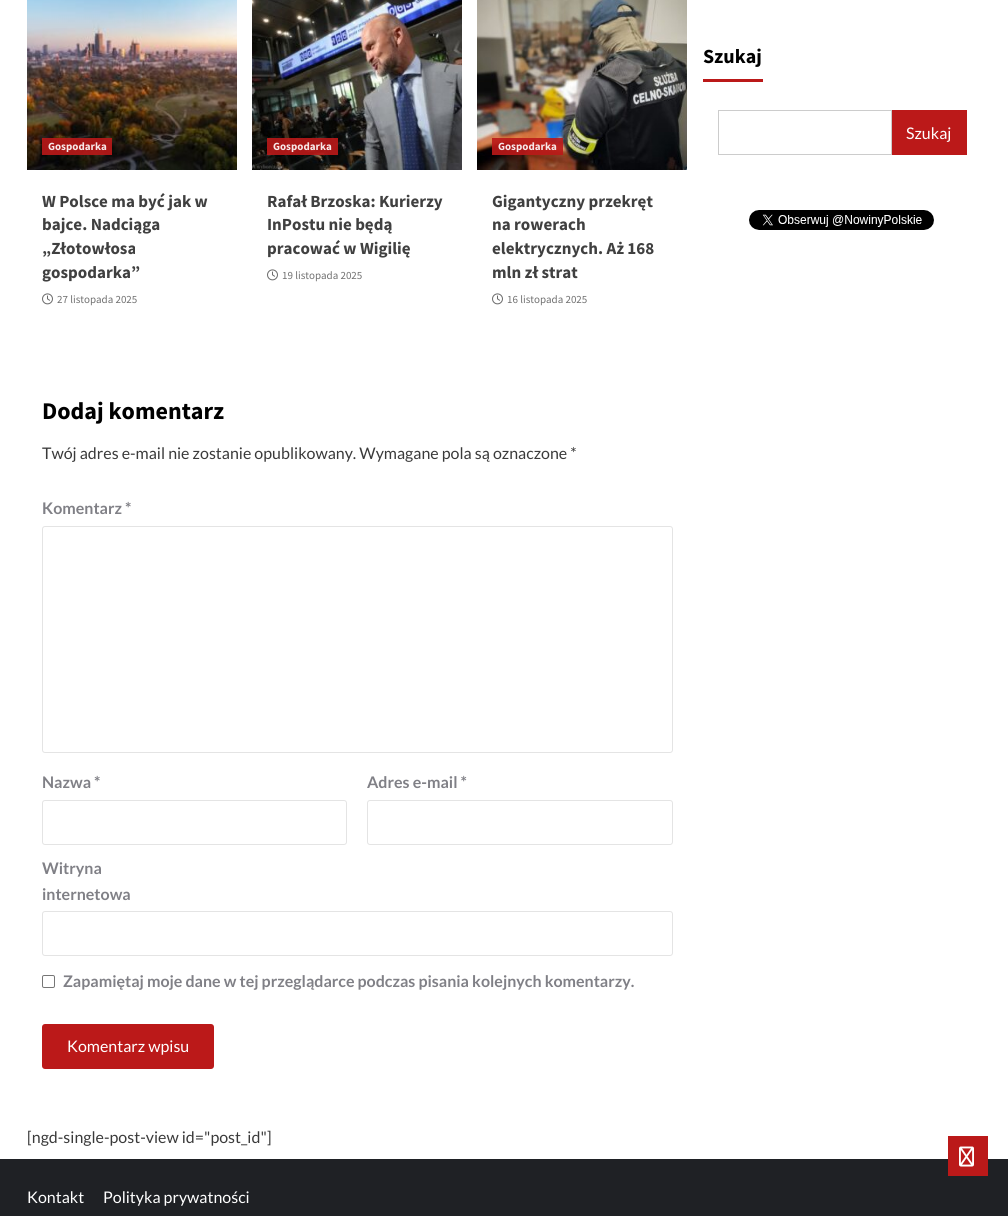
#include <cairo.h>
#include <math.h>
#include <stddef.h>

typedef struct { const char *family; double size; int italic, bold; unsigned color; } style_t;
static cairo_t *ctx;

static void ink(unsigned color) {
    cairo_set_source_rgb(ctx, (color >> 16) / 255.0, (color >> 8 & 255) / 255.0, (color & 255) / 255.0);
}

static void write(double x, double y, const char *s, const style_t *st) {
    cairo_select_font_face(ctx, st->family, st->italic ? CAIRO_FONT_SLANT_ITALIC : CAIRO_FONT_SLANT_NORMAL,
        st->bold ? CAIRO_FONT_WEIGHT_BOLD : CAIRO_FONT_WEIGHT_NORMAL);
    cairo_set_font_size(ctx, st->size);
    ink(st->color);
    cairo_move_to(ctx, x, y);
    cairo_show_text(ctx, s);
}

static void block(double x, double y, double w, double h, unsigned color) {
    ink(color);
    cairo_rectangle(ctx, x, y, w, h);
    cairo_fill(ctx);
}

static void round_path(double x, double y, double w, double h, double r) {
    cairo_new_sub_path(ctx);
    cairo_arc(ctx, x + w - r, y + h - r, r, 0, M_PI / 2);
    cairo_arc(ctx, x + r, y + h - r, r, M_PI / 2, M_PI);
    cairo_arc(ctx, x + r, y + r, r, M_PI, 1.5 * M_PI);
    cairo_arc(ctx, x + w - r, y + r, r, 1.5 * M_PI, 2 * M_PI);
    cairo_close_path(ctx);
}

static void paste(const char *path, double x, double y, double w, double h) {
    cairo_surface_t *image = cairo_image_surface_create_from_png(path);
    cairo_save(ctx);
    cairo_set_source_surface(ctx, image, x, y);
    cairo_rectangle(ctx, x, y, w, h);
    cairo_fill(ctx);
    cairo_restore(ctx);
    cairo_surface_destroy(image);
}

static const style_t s1 = {"Source Sans Pro", 20, 0, 1, 0x000000};
static const style_t s2 = {"Lato", 16, 0, 0, 0xffffff};
static const style_t s3 = {"Source Sans Pro", 11, 0, 1, 0xf7e8e8};
static const style_t s4 = {"Source Sans Pro", 17, 0, 1, 0x404040};
static const style_t s5 = {"Source Sans Pro", 11, 0, 0, 0x707070};
static const style_t s6 = {"Source Sans Pro", 24, 0, 1, 0x000000};
static const style_t s7 = {"Lato", 16, 0, 0, 0x3a3a3a};
static const style_t s8 = {"Lato", 16, 0, 1, 0x808086};

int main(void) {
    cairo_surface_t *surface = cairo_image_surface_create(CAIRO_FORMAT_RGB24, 1008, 1216);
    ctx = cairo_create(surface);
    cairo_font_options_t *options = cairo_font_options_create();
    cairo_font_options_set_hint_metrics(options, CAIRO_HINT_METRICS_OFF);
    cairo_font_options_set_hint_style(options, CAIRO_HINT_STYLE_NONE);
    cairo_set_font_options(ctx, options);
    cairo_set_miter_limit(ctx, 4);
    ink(0xffffff);
    cairo_paint(ctx);
    write(703, 63, "Szukaj", &s1);
    block(703, 79, 60, 3, 0xbb1919);
    cairo_rectangle(ctx, 718.5, 110.5, 173, 44);
    ink(0xcccccc);
    cairo_set_line_width(ctx, 1);
    cairo_stroke(ctx);
    block(892, 110, 75, 45, 0xbb1919);
    write(906, 139, "Szukaj", &s2);
    paste("pic1.png", 749, 210, 185, 20);
    paste("pic2.png", 27, 0, 210, 170);
    cairo_set_source_rgba(ctx, 0.733, 0.098, 0.098, 0.9);
    cairo_rectangle(ctx, 42, 138, 70, 17);
    cairo_fill(ctx);
    write(48, 150, "Gospodarka", &s3);
    write(42, 207, "W Polsce ma być jak w", &s4);
    write(42, 230, "bajce. Nadciąga", &s4);
    write(42, 254, "„Złotowłosa", &s4);
    write(42, 278, "gospodarka”", &s4);
    paste("pic3.png", 42, 293, 11, 12);
    write(57, 303, "27 listopada 2025", &s5);
    paste("pic4.png", 252, 0, 210, 170);
    cairo_set_source_rgba(ctx, 0.733, 0.098, 0.098, 0.9);
    cairo_rectangle(ctx, 267, 138, 71, 17);
    cairo_fill(ctx);
    write(273, 150, "Gospodarka", &s3);
    write(267, 207, "Rafał Brzoska: Kurierzy", &s4);
    write(267, 230, "InPostu nie będą", &s4);
    write(267, 254, "pracować w Wigilię", &s4);
    paste("pic3.png", 267, 269, 11, 12);
    write(282, 279, "19 listopada 2025", &s5);
    paste("pic5.png", 477, 0, 210, 170);
    cairo_set_source_rgba(ctx, 0.733, 0.098, 0.098, 0.9);
    cairo_rectangle(ctx, 492, 138, 71, 17);
    cairo_fill(ctx);
    write(498, 150, "Gospodarka", &s3);
    write(492, 207, "Gigantyczny przekręt", &s4);
    write(492, 230, "na rowerach", &s4);
    write(492, 254, "elektrycznych. Aż 168", &s4);
    write(492, 278, "mln zł strat", &s4);
    paste("pic3.png", 492, 293, 11, 12);
    write(507, 303, "16 listopada 2025", &s5);
    write(42, 419, "Dodaj komentarz", &s6);
    write(42, 459, "Twój adres e-mail nie zostanie opublikowany. Wymagane pola są oznaczone *", &s7);
    write(42, 514, "Komentarz *", &s8);
    round_path(42.5, 526.5, 630, 226, 2.5);
    ink(0xe4e4e4);
    cairo_stroke(ctx);
    write(42, 788, "Nazwa *", &s8);
    round_path(42.5, 800.5, 304, 44, 2.5);
    ink(0xe4e4e4);
    cairo_stroke(ctx);
    write(367, 788, "Adres e-mail *", &s8);
    round_path(367.5, 800.5, 305, 44, 2.5);
    ink(0xe4e4e4);
    cairo_stroke(ctx);
    write(42, 874, "Witryna", &s8);
    write(42, 900, "internetowa", &s8);
    round_path(42.5, 911.5, 630, 44, 2.5);
    ink(0xe4e4e4);
    cairo_stroke(ctx);
    round_path(42.5, 975.5, 12, 12, 1.5);
    ink(0x767676);
    cairo_stroke(ctx);
    write(63, 987, "Zapamiętaj moje dane w tej przeglądarce podczas pisania kolejnych komentarzy.", &s8);
    ink(0xbb1919);
    round_path(42, 1024, 172, 45, 3);
    cairo_fill(ctx);
    write(67, 1052, "Komentarz wpisu", &s2);
    write(27, 1143, "[ngd-single-post-view id=\"post_id\"]", &s7);
    block(0, 1159, 1008, 57, 0x1f2125);
    write(27, 1203, "Kontakt", &s2);
    write(103, 1203, "Polityka prywatności", &s2);
    block(948, 1136, 40, 40, 0xbb1919);
    paste("pic6.png", 959, 1146, 15, 21);
    cairo_surface_write_to_png(surface, "screenshot.png");
    cairo_font_options_destroy(options);
    cairo_destroy(ctx);
    cairo_surface_destroy(surface);
    return 0;
}
